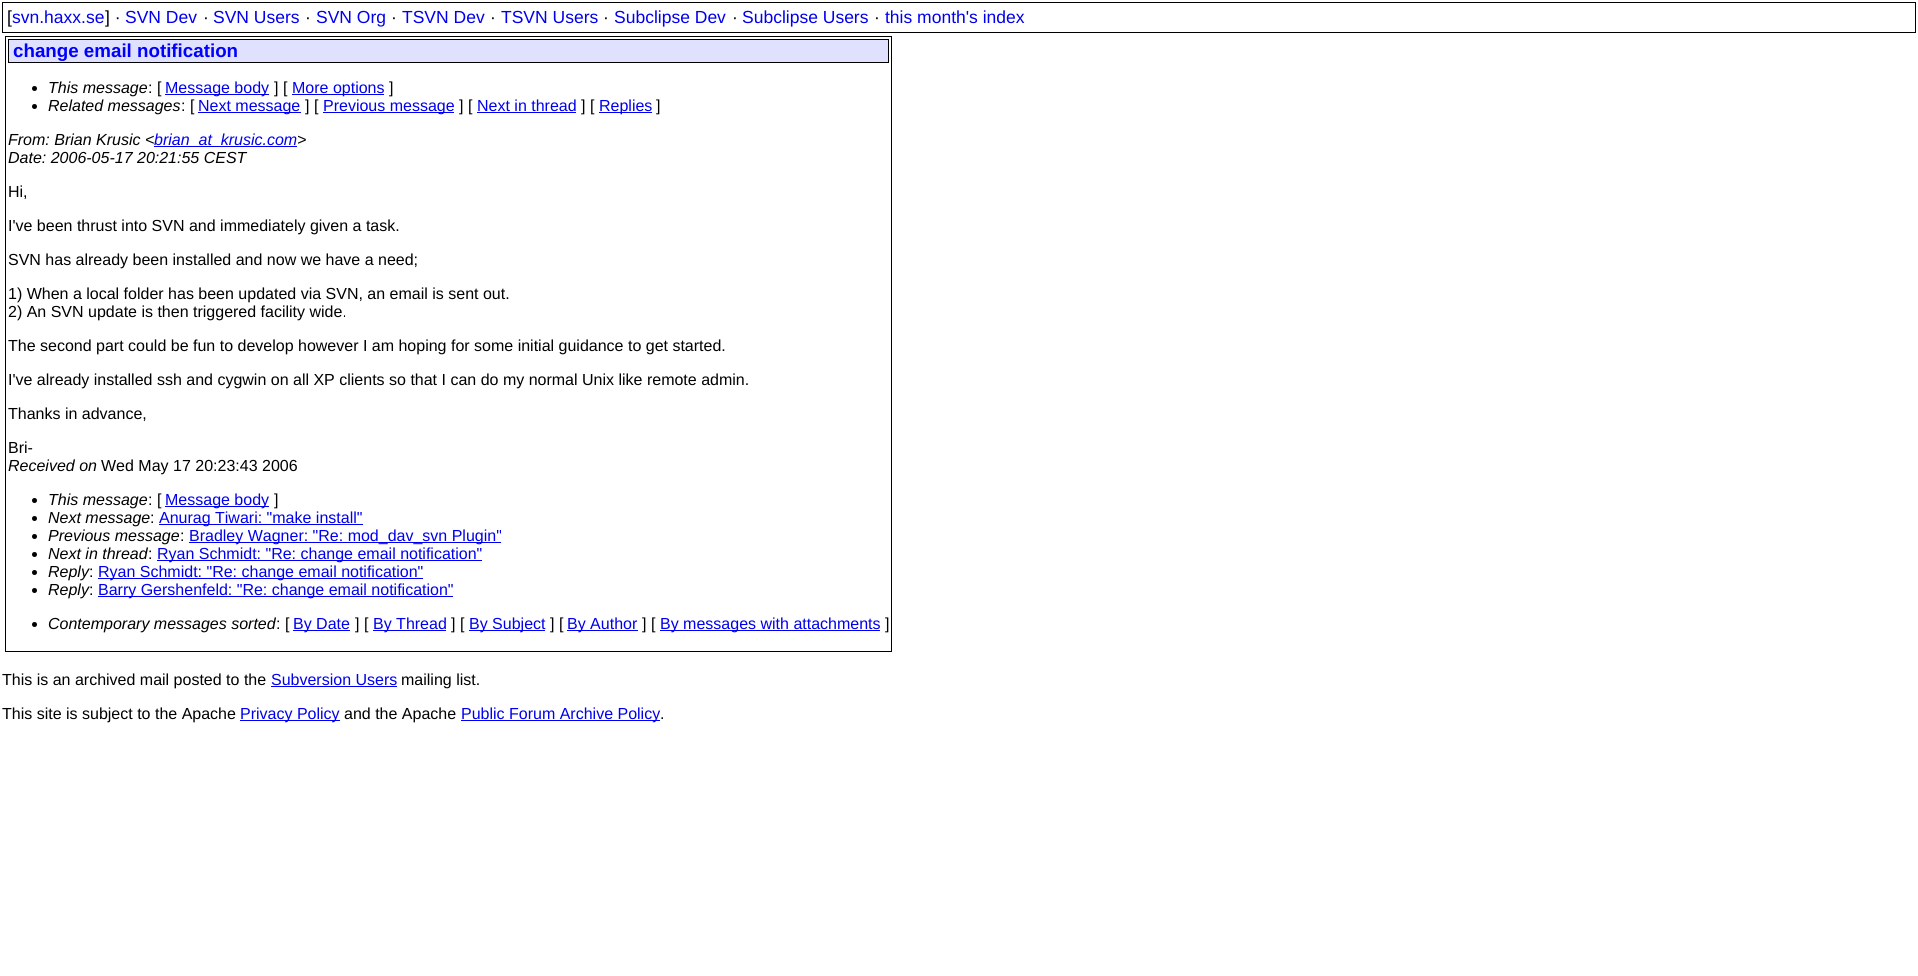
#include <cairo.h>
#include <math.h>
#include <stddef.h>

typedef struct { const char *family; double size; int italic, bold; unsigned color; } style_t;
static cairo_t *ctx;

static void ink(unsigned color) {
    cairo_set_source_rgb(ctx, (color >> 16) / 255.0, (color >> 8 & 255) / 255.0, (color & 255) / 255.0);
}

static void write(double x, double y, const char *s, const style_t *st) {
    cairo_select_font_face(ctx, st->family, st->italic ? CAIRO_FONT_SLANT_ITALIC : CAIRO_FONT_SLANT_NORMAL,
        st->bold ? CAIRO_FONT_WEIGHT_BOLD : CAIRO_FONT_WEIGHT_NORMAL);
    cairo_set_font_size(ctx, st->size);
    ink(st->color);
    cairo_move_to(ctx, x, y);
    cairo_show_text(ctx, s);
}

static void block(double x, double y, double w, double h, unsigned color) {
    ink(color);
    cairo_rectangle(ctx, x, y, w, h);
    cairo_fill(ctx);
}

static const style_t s1 = {"Liberation Sans", 17.5, 0, 0, 0x000000};
static const style_t s2 = {"Liberation Sans", 17.5, 0, 0, 0x0000ee};
static const style_t s3 = {"Liberation Sans", 18.75, 0, 1, 0x0000ff};
static const style_t s4 = {"Liberation Sans", 16, 1, 0, 0x000000};
static const style_t s5 = {"Liberation Sans", 16, 0, 0, 0x000000};
static const style_t s6 = {"Liberation Sans", 16, 0, 0, 0x0000ee};
static const style_t s7 = {"Liberation Sans", 16, 1, 0, 0x0000ee};

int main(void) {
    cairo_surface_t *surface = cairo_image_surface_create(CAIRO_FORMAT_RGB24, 1918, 976);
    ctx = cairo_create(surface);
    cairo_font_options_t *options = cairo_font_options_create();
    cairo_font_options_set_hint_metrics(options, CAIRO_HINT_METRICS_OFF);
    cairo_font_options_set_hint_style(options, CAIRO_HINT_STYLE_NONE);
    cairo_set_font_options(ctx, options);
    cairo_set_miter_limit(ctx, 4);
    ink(0xffffff);
    cairo_paint(ctx);
    cairo_rectangle(ctx, 2.5, 2.5, 1913, 30);
    ink(0x000000);
    cairo_set_line_width(ctx, 1);
    cairo_stroke(ctx);
    write(7, 23, "[", &s1);
    write(12, 23, "svn.haxx.se", &s2);
    write(105, 23, "] ·", &s1);
    write(125, 23, "SVN Dev", &s2);
    write(203, 23, "·", &s1);
    write(213, 23, "SVN Users", &s2);
    write(305, 23, "·", &s1);
    write(316, 23, "SVN Org", &s2);
    write(391, 23, "·", &s1);
    write(402, 23, "TSVN Dev", &s2);
    write(490, 23, "·", &s1);
    write(501, 23, "TSVN Users", &s2);
    write(603, 23, "·", &s1);
    write(614, 23, "Subclipse Dev", &s2);
    write(732, 23, "·", &s1);
    write(742, 23, "Subclipse Users", &s2);
    write(874, 23, "·", &s1);
    write(885, 23, "this month's index", &s2);
    cairo_rectangle(ctx, 5.5, 36.5, 886, 615);
    ink(0x000000);
    cairo_stroke(ctx);
    ink(0xe0e0ff);
    cairo_rectangle(ctx, 8.5, 39.5, 880, 23);
    cairo_fill_preserve(ctx);
    ink(0x000000);
    cairo_stroke(ctx);
    write(13, 57, "change email notification", &s3);
    ink(0x000000);
    cairo_new_path(ctx);
    cairo_arc(ctx, 34.5, 88.5, 2.5, 0, 2 * M_PI);
    cairo_fill(ctx);
    write(48, 93, "This message", &s4);
    write(148, 93, ": [", &s5);
    block(165, 94, 104, 1, 0x0000ee);
    write(165, 93, "Message body", &s6);
    write(274, 93, "] [", &s5);
    block(292, 94, 92, 1, 0x0000ee);
    write(292, 93, "More options", &s6);
    write(389, 93, "]", &s5);
    cairo_new_path(ctx);
    cairo_arc(ctx, 34.5, 106.5, 2.5, 0, 2 * M_PI);
    cairo_fill(ctx);
    write(48, 111, "Related messages", &s4);
    write(181, 111, ": [", &s5);
    block(198, 112, 103, 1, 0x0000ee);
    write(198, 111, "Next message", &s6);
    write(305, 111, "] [", &s5);
    block(323, 112, 131, 1, 0x0000ee);
    write(323, 111, "Previous message", &s6);
    write(459, 111, "] [", &s5);
    write(477, 111, "Next in thread", &s6);
    block(477, 112, 99, 1, 0x0000ee);
    write(581, 111, "] [", &s5);
    block(599, 112, 53, 1, 0x0000ee);
    write(599, 111, "Replies", &s6);
    write(656, 111, "]", &s5);
    write(8, 145, "From: Brian Krusic <", &s4);
    block(154, 146, 143, 1, 0x0000ee);
    write(154, 145, "brian_at_krusic.com", &s7);
    write(297, 145, ">", &s4);
    write(8, 163, "Date: 2006-05-17 20:21:55 CEST", &s4);
    write(8, 197, "Hi,", &s5);
    write(8, 231, "I've been thrust into SVN and immediately given a task.", &s5);
    write(8, 265, "SVN has already been installed and now we have a need;", &s5);
    write(8, 299, "1) When a local folder has been updated via SVN, an email is sent out.", &s5);
    write(8, 317, "2) An SVN update is then triggered facility wide.", &s5);
    write(8, 351, "The second part could be fun to develop however I am hoping for some initial guidance to get started.", &s5);
    write(8, 385, "I've already installed ssh and cygwin on all XP clients so that I can do my normal Unix like remote admin.", &s5);
    write(8, 419, "Thanks in advance,", &s5);
    write(8, 453, "Bri-", &s5);
    write(8, 471, "Received on", &s4);
    write(101, 471, "Wed May 17 20:23:43 2006", &s5);
    cairo_new_path(ctx);
    cairo_arc(ctx, 34.5, 500.5, 2.5, 0, 2 * M_PI);
    cairo_fill(ctx);
    write(48, 505, "This message", &s4);
    write(148, 505, ": [", &s5);
    block(165, 506, 104, 1, 0x0000ee);
    write(165, 505, "Message body", &s6);
    write(274, 505, "]", &s5);
    cairo_new_path(ctx);
    cairo_arc(ctx, 34.5, 518.5, 2.5, 0, 2 * M_PI);
    cairo_fill(ctx);
    write(48, 523, "Next message", &s4);
    write(150, 523, ":", &s5);
    block(159, 524, 204, 1, 0x0000ee);
    write(159, 523, "Anurag Tiwari: \"make install\"", &s6);
    ink(0x000000);
    cairo_new_path(ctx);
    cairo_arc(ctx, 34.5, 536.5, 2.5, 0, 2 * M_PI);
    cairo_fill(ctx);
    write(48, 541, "Previous message", &s4);
    write(180, 541, ":", &s5);
    block(189, 542, 312, 1, 0x0000ee);
    write(189, 541, "Bradley Wagner: \"Re: mod_dav_svn Plugin\"", &s6);
    ink(0x000000);
    cairo_new_path(ctx);
    cairo_arc(ctx, 34.5, 554.5, 2.5, 0, 2 * M_PI);
    cairo_fill(ctx);
    write(48, 559, "Next in thread", &s4);
    write(148, 559, ":", &s5);
    block(157, 560, 325, 1, 0x0000ee);
    write(157, 559, "Ryan Schmidt: \"Re: change email notification\"", &s6);
    ink(0x000000);
    cairo_new_path(ctx);
    cairo_arc(ctx, 34.5, 572.5, 2.5, 0, 2 * M_PI);
    cairo_fill(ctx);
    write(48, 577, "Reply", &s4);
    write(89, 577, ":", &s5);
    block(98, 578, 325, 1, 0x0000ee);
    write(98, 577, "Ryan Schmidt: \"Re: change email notification\"", &s6);
    ink(0x000000);
    cairo_new_path(ctx);
    cairo_arc(ctx, 34.5, 590.5, 2.5, 0, 2 * M_PI);
    cairo_fill(ctx);
    write(48, 595, "Reply", &s4);
    write(89, 595, ":", &s5);
    block(98, 596, 355, 1, 0x0000ee);
    write(98, 595, "Barry Gershenfeld: \"Re: change email notification\"", &s6);
    ink(0x000000);
    cairo_new_path(ctx);
    cairo_arc(ctx, 34.5, 624.5, 2.5, 0, 2 * M_PI);
    cairo_fill(ctx);
    write(48, 629, "Contemporary messages sorted", &s4);
    write(276, 629, ": [", &s5);
    block(293, 630, 57, 1, 0x0000ee);
    write(293, 629, "By Date", &s6);
    write(355, 629, "] [", &s5);
    block(373, 630, 73, 1, 0x0000ee);
    write(373, 629, "By Thread", &s6);
    write(451, 629, "] [", &s5);
    block(469, 630, 76, 1, 0x0000ee);
    write(469, 629, "By Subject", &s6);
    write(550, 629, "] [", &s5);
    block(567, 630, 71, 1, 0x0000ee);
    write(567, 629, "By Author", &s6);
    write(642, 629, "] [", &s5);
    block(660, 630, 220, 1, 0x0000ee);
    write(660, 629, "By messages with attachments", &s6);
    write(885, 629, "]", &s5);
    write(2, 685, "This is an archived mail posted to the", &s5);
    write(271, 685, "Subversion Users", &s6);
    block(271, 686, 126, 1, 0x0000ee);
    write(401, 685, "mailing list.", &s5);
    write(2, 719, "This site is subject to the Apache", &s5);
    block(240, 720, 100, 1, 0x0000ee);
    write(240, 719, "Privacy Policy", &s6);
    write(344, 719, "and the Apache", &s5);
    block(461, 720, 199, 1, 0x0000ee);
    write(461, 719, "Public Forum Archive Policy", &s6);
    write(660, 719, ".", &s5);
    cairo_surface_write_to_png(surface, "screenshot.png");
    cairo_font_options_destroy(options);
    cairo_destroy(ctx);
    cairo_surface_destroy(surface);
    return 0;
}
